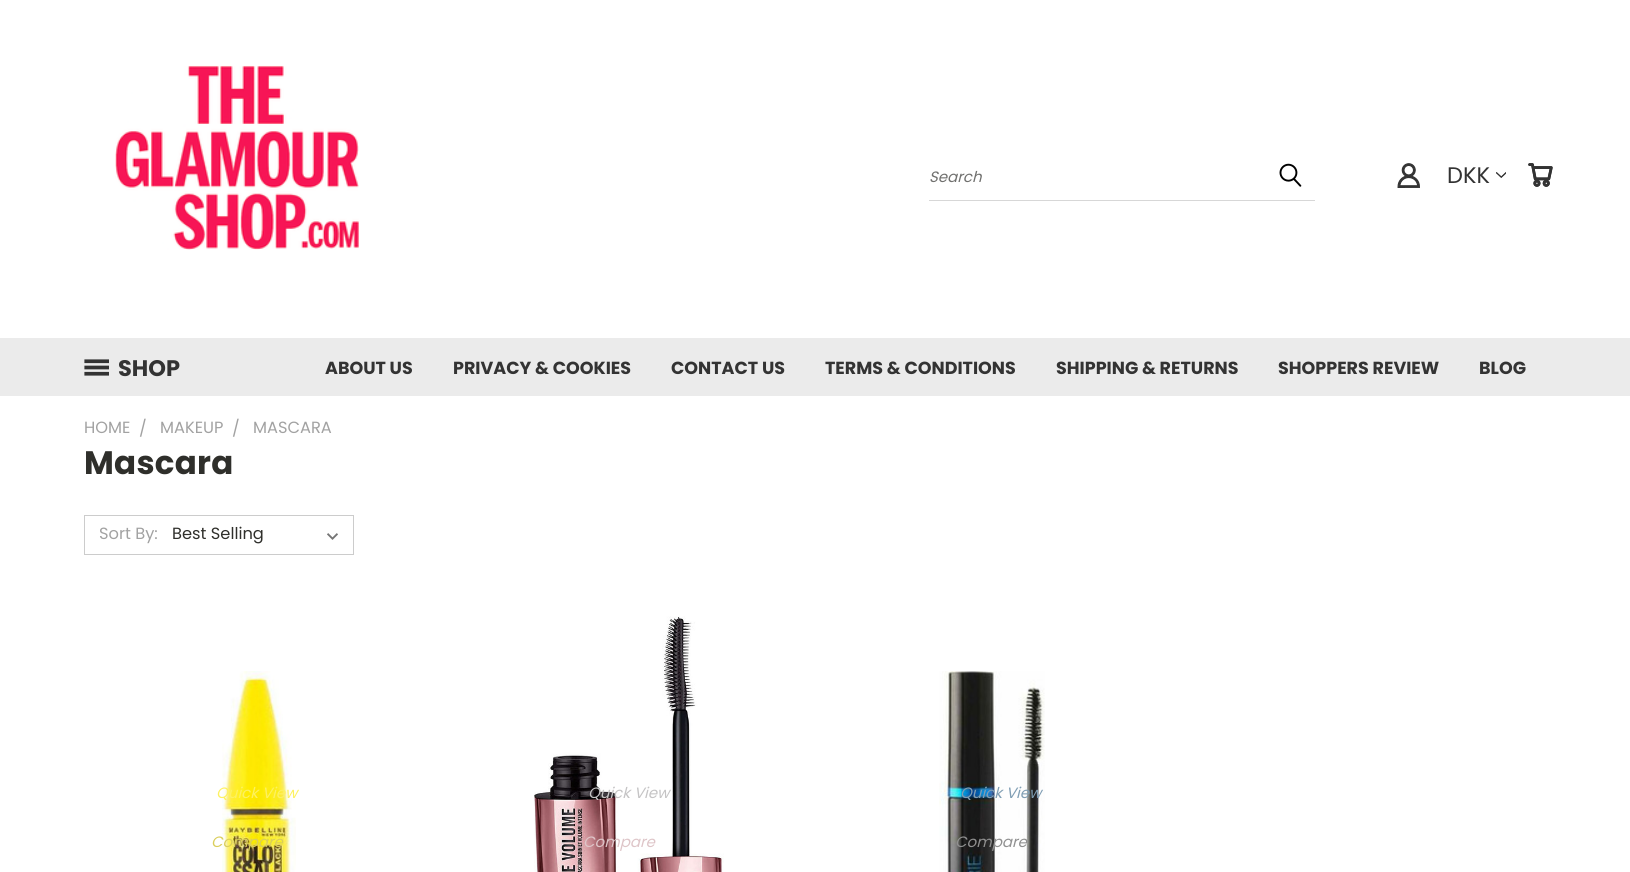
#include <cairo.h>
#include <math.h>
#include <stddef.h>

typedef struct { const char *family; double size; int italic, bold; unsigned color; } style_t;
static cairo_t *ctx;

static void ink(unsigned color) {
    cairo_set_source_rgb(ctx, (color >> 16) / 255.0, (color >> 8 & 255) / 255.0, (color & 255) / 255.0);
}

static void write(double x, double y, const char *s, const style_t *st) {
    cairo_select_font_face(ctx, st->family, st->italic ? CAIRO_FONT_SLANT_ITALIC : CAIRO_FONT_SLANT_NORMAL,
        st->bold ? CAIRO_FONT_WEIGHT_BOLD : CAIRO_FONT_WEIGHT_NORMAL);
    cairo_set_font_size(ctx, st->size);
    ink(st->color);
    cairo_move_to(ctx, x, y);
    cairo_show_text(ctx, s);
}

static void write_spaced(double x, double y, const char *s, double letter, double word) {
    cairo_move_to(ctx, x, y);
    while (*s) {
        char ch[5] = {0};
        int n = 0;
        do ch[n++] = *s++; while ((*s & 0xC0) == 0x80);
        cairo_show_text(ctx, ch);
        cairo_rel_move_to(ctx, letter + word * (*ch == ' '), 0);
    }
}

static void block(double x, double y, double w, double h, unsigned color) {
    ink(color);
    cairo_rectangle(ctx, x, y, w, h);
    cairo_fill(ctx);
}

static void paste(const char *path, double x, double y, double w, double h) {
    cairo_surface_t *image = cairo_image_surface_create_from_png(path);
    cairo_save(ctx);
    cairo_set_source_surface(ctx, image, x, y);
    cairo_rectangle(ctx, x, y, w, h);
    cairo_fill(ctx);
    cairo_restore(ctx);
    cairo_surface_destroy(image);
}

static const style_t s1 = {"Poppins", 15, 1, 0, 0x70706e};
static const style_t s2 = {"Poppins", 22.5, 0, 0, 0x333333};
static const style_t s3 = {"Poppins", 22.5, 0, 1, 0x333333};
static const style_t s4 = {"Poppins", 17.5, 0, 1, 0x333333};
static const style_t s5 = {"Poppins", 16.25, 0, 0, 0xa2a2a2};
static const style_t s6 = {"Poppins", 16.25, 0, 0, 0x2f2f2b};
static const style_t s7 = {"Poppins", 15, 1, 0, 0xfdf160};
static const style_t s8 = {"Poppins", 15, 1, 0, 0xdace5b};
static const style_t s9 = {"Poppins", 15, 1, 0, 0xc5c4c5};
static const style_t s10 = {"Poppins", 15, 1, 0, 0xdec5c8};
static const style_t s11 = {"Poppins", 15, 1, 0, 0x809eb4};
static const style_t s12 = {"Poppins", 15, 1, 0, 0x909090};

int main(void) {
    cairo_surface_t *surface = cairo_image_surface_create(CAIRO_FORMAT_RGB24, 1630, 872);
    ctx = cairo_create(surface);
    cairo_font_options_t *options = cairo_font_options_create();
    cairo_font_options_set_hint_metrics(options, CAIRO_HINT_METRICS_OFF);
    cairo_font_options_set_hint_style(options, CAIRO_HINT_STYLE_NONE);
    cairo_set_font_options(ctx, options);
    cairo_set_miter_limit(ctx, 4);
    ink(0xffffff);
    cairo_paint(ctx);
    paste("pic1.png", 115, 65, 244, 185);
    block(929, 200, 386, 1, 0xd7d7d7);
    write(929, 182, "Search", &s1);
    paste("pic2.png", 1279, 163, 23, 24);
    paste("pic3.png", 1397, 163, 23, 25);
    write(1447, 183, "DKK", &s2);
    paste("pic4.png", 1496, 172, 10, 6);
    paste("pic5.png", 1528, 163, 25, 24);
    block(0, 338, 1630, 58, 0xebebeb);
    paste("pic6.png", 84, 359, 25, 17);
    write(118, 376, "SHOP", &s3);
    write(325, 374, "ABOUT US", &s4);
    write(453, 374, "PRIVACY & COOKIES", &s4);
    write(671, 374, "CONTACT US", &s4);
    write(825, 374, "TERMS & CONDITIONS", &s4);
    write(1056, 374, "SHIPPING & RETURNS", &s4);
    write(1278, 374, "SHOPPERS REVIEW", &s4);
    write(1479, 374, "BLOG", &s4);
    write(84, 433, "HOME", &s5);
    write(139, 434, "/", &s5);
    write(160, 433, "MAKEUP", &s5);
    write(232, 434, "/", &s5);
    write(253, 433, "MASCARA", &s5);
    cairo_select_font_face(ctx, "Poppins", CAIRO_FONT_SLANT_NORMAL, CAIRO_FONT_WEIGHT_BOLD);
    cairo_set_font_size(ctx, 32.5);
    ink(0x2f2f2b);
    write_spaced(84, 474, "Mascara", 0.25, 0);
    cairo_rectangle(ctx, 84.5, 515.5, 269, 39);
    ink(0xcccccc);
    cairo_set_line_width(ctx, 1);
    cairo_stroke(ctx);
    write(99, 539, "Sort By:", &s5);
    paste("pic7.png", 327, 533, 11, 7);
    write(172, 539, "Best Selling", &s6);
    paste("pic8.png", 222, 671, 74, 201);
    write(216, 798, "Quick View", &s7);
    write(211, 847, "Compare", &s8);
    paste("pic9.png", 534, 616, 190, 256);
    write(588, 798, "Quick View", &s9);
    write(583, 847, "Compare", &s10);
    paste("pic10.png", 939, 671, 106, 201);
    write(960, 798, "Quick View", &s11);
    write(955, 847, "Compare", &s12);
    cairo_surface_write_to_png(surface, "screenshot.png");
    cairo_font_options_destroy(options);
    cairo_destroy(ctx);
    cairo_surface_destroy(surface);
    return 0;
}
